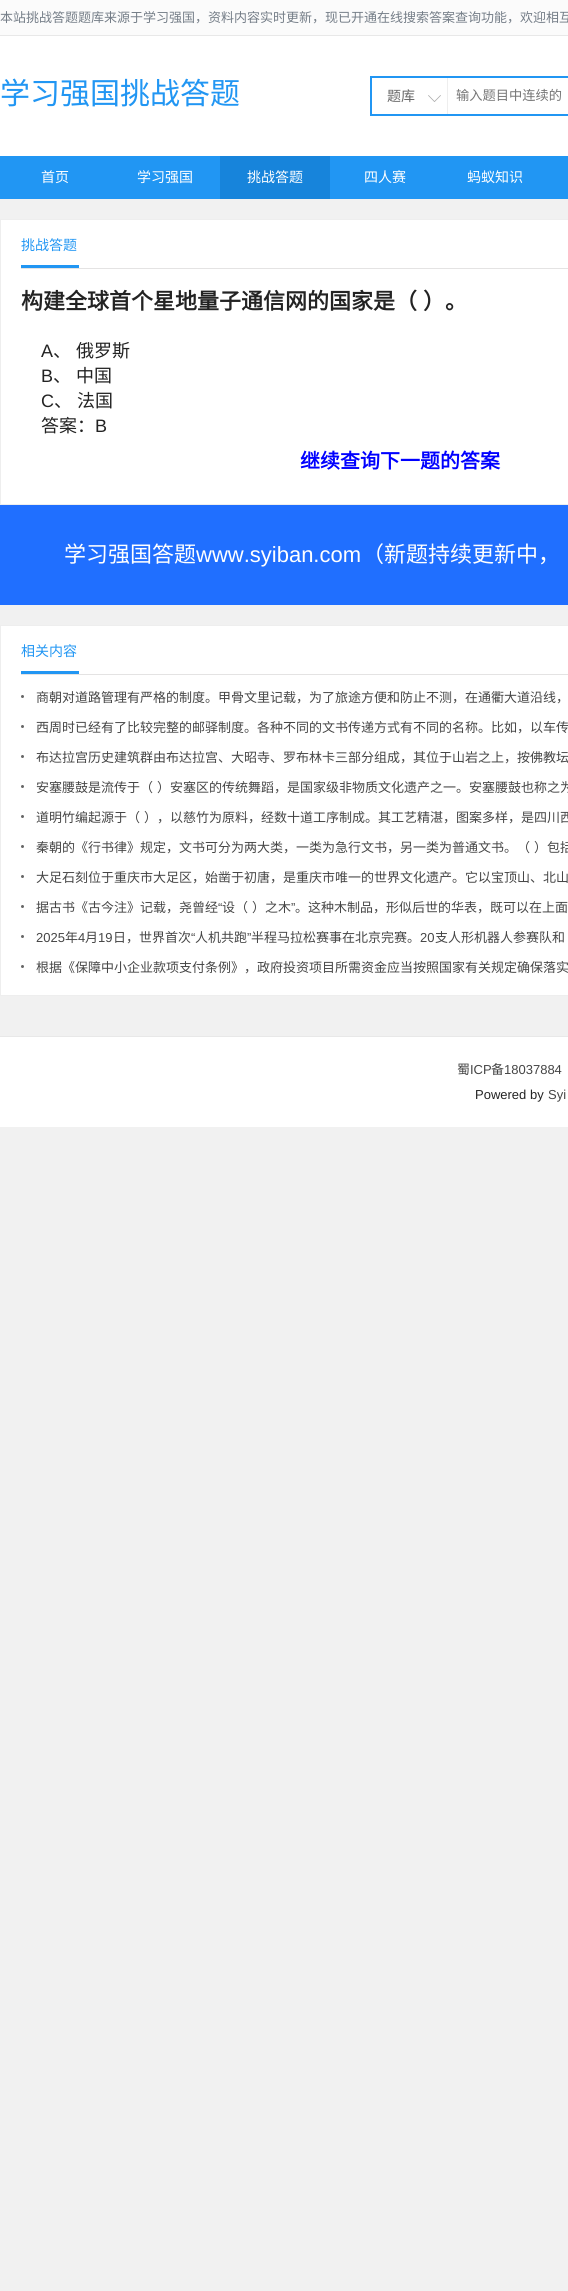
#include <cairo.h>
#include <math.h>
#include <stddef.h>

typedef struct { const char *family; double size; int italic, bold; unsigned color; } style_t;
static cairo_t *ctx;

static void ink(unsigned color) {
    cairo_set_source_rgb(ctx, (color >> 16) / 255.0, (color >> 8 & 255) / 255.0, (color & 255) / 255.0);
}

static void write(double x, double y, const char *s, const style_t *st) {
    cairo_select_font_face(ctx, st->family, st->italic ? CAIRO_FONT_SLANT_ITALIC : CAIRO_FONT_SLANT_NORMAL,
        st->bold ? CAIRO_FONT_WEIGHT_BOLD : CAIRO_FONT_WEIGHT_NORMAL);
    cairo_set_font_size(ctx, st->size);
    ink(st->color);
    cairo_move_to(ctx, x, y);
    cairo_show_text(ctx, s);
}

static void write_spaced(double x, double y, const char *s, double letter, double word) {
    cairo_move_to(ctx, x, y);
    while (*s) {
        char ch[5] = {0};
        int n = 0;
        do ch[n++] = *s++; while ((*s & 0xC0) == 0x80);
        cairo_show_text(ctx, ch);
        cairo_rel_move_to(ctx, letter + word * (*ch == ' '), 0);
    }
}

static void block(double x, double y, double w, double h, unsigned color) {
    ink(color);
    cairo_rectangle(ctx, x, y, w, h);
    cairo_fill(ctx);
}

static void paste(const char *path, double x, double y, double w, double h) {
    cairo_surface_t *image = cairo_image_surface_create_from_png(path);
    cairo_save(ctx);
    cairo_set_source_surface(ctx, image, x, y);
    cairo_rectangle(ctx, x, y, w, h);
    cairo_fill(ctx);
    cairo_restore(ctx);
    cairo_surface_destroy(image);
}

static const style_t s1 = {"Noto Sans CJK SC", 13, 0, 0, 0x747d87};
static const style_t s2 = {"Noto Sans CJK SC", 30, 0, 0, 0x2196f3};
static const style_t s3 = {"Noto Sans CJK SC", 14, 0, 0, 0x666666};
static const style_t s4 = {"Noto Sans CJK SC", 13.25, 0, 0, 0x757575};
static const style_t s5 = {"Noto Sans CJK SC", 14, 0, 0, 0xffffff};
static const style_t s6 = {"Noto Sans CJK SC", 14, 0, 0, 0x2196f3};
static const style_t s7 = {"Noto Sans CJK SC", 22, 0, 1, 0x232323};
static const style_t s8 = {"Liberation Sans", 18, 0, 0, 0x232323};
static const style_t s9 = {"Noto Sans CJK SC", 18, 0, 0, 0x232323};
static const style_t s10 = {"Noto Sans CJK SC", 20, 0, 1, 0x0000ff};
static const style_t s11 = {"Noto Sans CJK SC", 22, 0, 0, 0xffffff};
static const style_t s12 = {"Liberation Sans", 22, 0, 0, 0xffffff};
static const style_t s13 = {"Noto Sans CJK SC", 13, 0, 0, 0x454545};
static const style_t s14 = {"Liberation Sans", 13, 0, 0, 0x454545};
static const style_t s15 = {"Liberation Sans", 13, 0, 0, 0x232323};

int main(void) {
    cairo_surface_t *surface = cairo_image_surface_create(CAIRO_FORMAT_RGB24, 568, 2291);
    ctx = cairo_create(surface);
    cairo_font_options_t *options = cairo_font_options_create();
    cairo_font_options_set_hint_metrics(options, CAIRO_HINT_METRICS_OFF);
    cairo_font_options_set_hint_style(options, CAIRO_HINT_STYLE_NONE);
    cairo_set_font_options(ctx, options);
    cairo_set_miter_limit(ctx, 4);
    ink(0xf1f1f1);
    cairo_paint(ctx);
    block(0, 0, 568, 35, 0xfbfbfb);
    block(0, 35, 568, 1, 0xe8e8e8);
    write(0, 22, "本站挑战答题题库来源于学习强国，资料内容实时更新，现已开通在线搜索答案查询功能，欢迎相互", &s1);
    block(0, 36, 568, 120, 0xffffff);
    write(0, 104, "学习强国挑战答题", &s2);
    block(370, 76, 198, 2, 0x2196f3);
    block(370, 114, 198, 2, 0x2196f3);
    block(370, 76, 2, 40, 0x2196f3);
    block(447, 78, 1, 36, 0xeeeeee);
    paste("pic1.png", 428, 95, 13, 7);
    write(387, 101, "题库", &s3);
    write(456, 100, "输入题目中连续的", &s4);
    block(0, 156, 568, 43, 0x2196f3);
    write(41, 182, "首页", &s5);
    write(137, 182, "学习强国", &s5);
    block(220, 156, 110, 43, 0x1784db);
    write(247, 182, "挑战答题", &s5);
    write(364, 182, "四人赛", &s5);
    write(467, 182, "蚂蚁知识", &s5);
    cairo_rectangle(ctx, 0.5, 219.5, 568, 285);
    cairo_fill_preserve(ctx);
    ink(0xeeeeee);
    cairo_set_line_width(ctx, 1);
    cairo_stroke(ctx);
    block(21, 268, 547, 1, 0xe4e3e3);
    block(21, 265, 58, 3, 0x2196f3);
    write(21, 250, "挑战答题", &s6);
    write(21, 309, "构建全球首个星地量子通信网的国家是（", &s7);
    write(423, 309, "）。", &s7);
    write(41, 357, "A", &s8);
    cairo_select_font_face(ctx, "Noto Sans CJK SC", CAIRO_FONT_SLANT_NORMAL, CAIRO_FONT_WEIGHT_NORMAL);
    write_spaced(53, 357, "、 俄罗斯", 0, 1);
    write(41, 382, "B", &s8);
    cairo_select_font_face(ctx, "Noto Sans CJK SC", CAIRO_FONT_SLANT_NORMAL, CAIRO_FONT_WEIGHT_NORMAL);
    write_spaced(53, 382, "、 中国", 0, 1);
    write(41, 407, "C", &s8);
    cairo_select_font_face(ctx, "Noto Sans CJK SC", CAIRO_FONT_SLANT_NORMAL, CAIRO_FONT_WEIGHT_NORMAL);
    write_spaced(54, 407, "、 法国", 0, 1);
    write(41, 432, "答案：", &s9);
    write(95, 432, "B", &s8);
    write(300, 468, "继续查询下一题的答案", &s10);
    block(0, 505, 568, 100, 0x206fff);
    write(64, 562, "学习强国答题", &s11);
    write(196, 562, "www.syiban.com", &s12);
    write(362, 562, "（新题持续更新中，", &s11);
    cairo_rectangle(ctx, 0.5, 625.5, 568, 370);
    cairo_fill_preserve(ctx);
    ink(0xeeeeee);
    cairo_stroke(ctx);
    block(21, 674, 547, 1, 0xe4e3e3);
    block(21, 671, 58, 3, 0x2196f3);
    write(21, 656, "相关内容", &s6);
    ink(0x666666);
    cairo_new_path(ctx);
    cairo_arc(ctx, 22.5, 696.5, 1.5, 0, 2 * M_PI);
    cairo_fill(ctx);
    write(36, 702, "商朝对道路管理有严格的制度。甲骨文里记载，为了旅途方便和防止不测，在通衢大道沿线，", &s13);
    ink(0x666666);
    cairo_new_path(ctx);
    cairo_arc(ctx, 22.5, 726.5, 1.5, 0, 2 * M_PI);
    cairo_fill(ctx);
    write(36, 732, "西周时已经有了比较完整的邮驿制度。各种不同的文书传递方式有不同的名称。比如，以车传", &s13);
    ink(0x666666);
    cairo_new_path(ctx);
    cairo_arc(ctx, 22.5, 756.5, 1.5, 0, 2 * M_PI);
    cairo_fill(ctx);
    write(36, 762, "布达拉宫历史建筑群由布达拉宫、大昭寺、罗布林卡三部分组成，其位于山岩之上，按佛教坛", &s13);
    ink(0x666666);
    cairo_new_path(ctx);
    cairo_arc(ctx, 22.5, 786.5, 1.5, 0, 2 * M_PI);
    cairo_fill(ctx);
    write(36, 792, "安塞腰鼓是流传于（", &s13);
    write(157, 792, "）安塞区的传统舞蹈，是国家级非物质文化遗产之一。安塞腰鼓也称之为", &s13);
    ink(0x666666);
    cairo_new_path(ctx);
    cairo_arc(ctx, 22.5, 816.5, 1.5, 0, 2 * M_PI);
    cairo_fill(ctx);
    write(36, 822, "道明竹编起源于（", &s13);
    write(144, 822, "），以慈竹为原料，经数十道工序制成。其工艺精湛，图案多样，是四川西", &s13);
    ink(0x666666);
    cairo_new_path(ctx);
    cairo_arc(ctx, 22.5, 846.5, 1.5, 0, 2 * M_PI);
    cairo_fill(ctx);
    write(36, 852, "秦朝的《行书律》规定，文书可分为两大类，一类为急行文书，另一类为普通文书。（", &s13);
    write(534, 852, "）包括", &s13);
    ink(0x666666);
    cairo_new_path(ctx);
    cairo_arc(ctx, 22.5, 876.5, 1.5, 0, 2 * M_PI);
    cairo_fill(ctx);
    write(36, 882, "大足石刻位于重庆市大足区，始凿于初唐，是重庆市唯一的世界文化遗产。它以宝顶山、北山", &s13);
    write(36, 912, "据古书《古今注》记载，尧曾经", &s13);
    write(218, 912, "“", &s14);
    write(222, 912, "设（", &s13);
    write(252, 912, "）之木", &s13);
    write(291, 912, "”", &s14);
    write(295, 912, "。这种木制品，形似后世的华表，既可以在上面", &s13);
    ink(0x666666);
    cairo_new_path(ctx);
    cairo_arc(ctx, 22.5, 906.5, 1.5, 0, 2 * M_PI);
    cairo_fill(ctx);
    write(36, 942, "2025", &s14);
    write(65, 942, "年", &s13);
    write(78, 942, "4", &s14);
    write(85, 942, "月", &s13);
    write(98, 942, "19", &s14);
    write(113, 942, "日，世界首次", &s13);
    write(191, 942, "“", &s14);
    write(195, 942, "人机共跑", &s13);
    write(247, 942, "”", &s14);
    write(251, 942, "半程马拉松赛事在北京完赛。", &s13);
    write(420, 942, "20", &s14);
    write(435, 942, "支人形机器人参赛队和", &s13);
    ink(0x666666);
    cairo_new_path(ctx);
    cairo_arc(ctx, 22.5, 936.5, 1.5, 0, 2 * M_PI);
    cairo_fill(ctx);
    cairo_arc(ctx, 22.5, 966.5, 1.5, 0, 2 * M_PI);
    cairo_fill(ctx);
    write(36, 972, "根据《保障中小企业款项支付条例》，政府投资项目所需资金应当按照国家有关规定确保落实", &s13);
    block(0, 1037, 568, 90, 0xffffff);
    block(0, 1036, 568, 1, 0xe8e8e8);
    write(457, 1074, "蜀", &s13);
    write(470, 1074, "ICP", &s14);
    write(491, 1074, "备", &s13);
    write(504, 1074, "18037884", &s14);
    write(475, 1099, "Powered by", &s15);
    write(548, 1099, "Syi", &s14);
    cairo_surface_write_to_png(surface, "screenshot.png");
    cairo_font_options_destroy(options);
    cairo_destroy(ctx);
    cairo_surface_destroy(surface);
    return 0;
}
